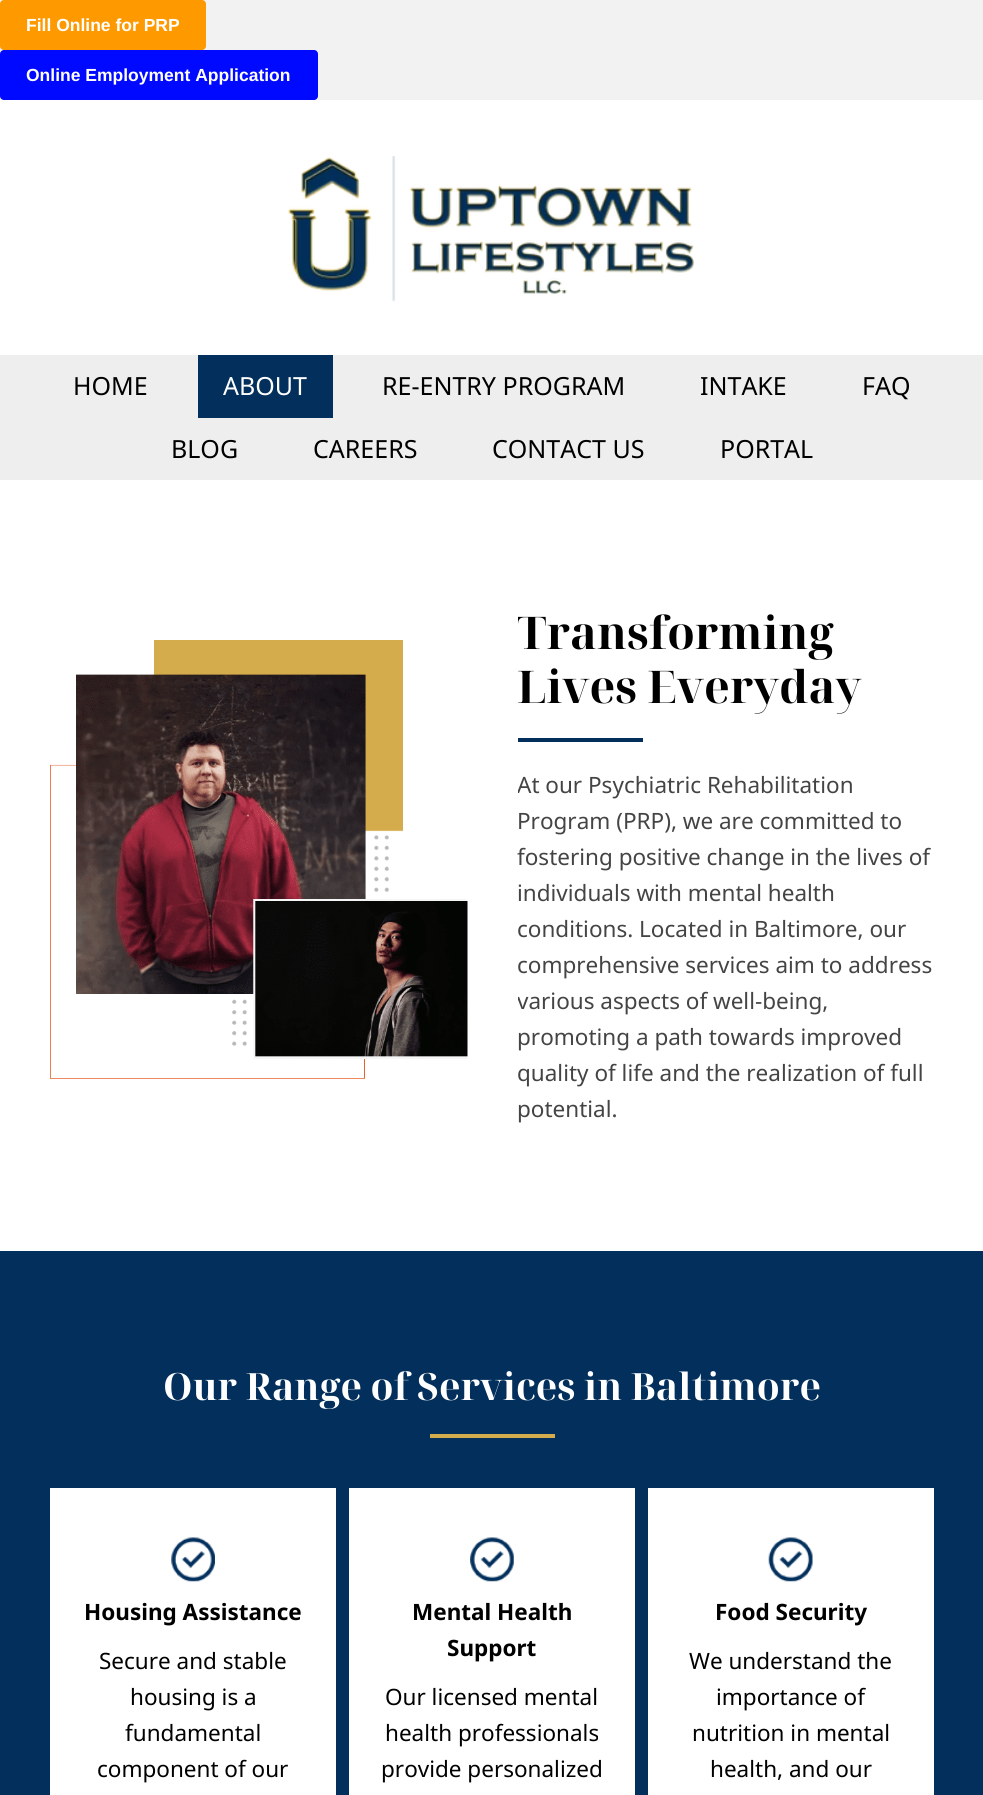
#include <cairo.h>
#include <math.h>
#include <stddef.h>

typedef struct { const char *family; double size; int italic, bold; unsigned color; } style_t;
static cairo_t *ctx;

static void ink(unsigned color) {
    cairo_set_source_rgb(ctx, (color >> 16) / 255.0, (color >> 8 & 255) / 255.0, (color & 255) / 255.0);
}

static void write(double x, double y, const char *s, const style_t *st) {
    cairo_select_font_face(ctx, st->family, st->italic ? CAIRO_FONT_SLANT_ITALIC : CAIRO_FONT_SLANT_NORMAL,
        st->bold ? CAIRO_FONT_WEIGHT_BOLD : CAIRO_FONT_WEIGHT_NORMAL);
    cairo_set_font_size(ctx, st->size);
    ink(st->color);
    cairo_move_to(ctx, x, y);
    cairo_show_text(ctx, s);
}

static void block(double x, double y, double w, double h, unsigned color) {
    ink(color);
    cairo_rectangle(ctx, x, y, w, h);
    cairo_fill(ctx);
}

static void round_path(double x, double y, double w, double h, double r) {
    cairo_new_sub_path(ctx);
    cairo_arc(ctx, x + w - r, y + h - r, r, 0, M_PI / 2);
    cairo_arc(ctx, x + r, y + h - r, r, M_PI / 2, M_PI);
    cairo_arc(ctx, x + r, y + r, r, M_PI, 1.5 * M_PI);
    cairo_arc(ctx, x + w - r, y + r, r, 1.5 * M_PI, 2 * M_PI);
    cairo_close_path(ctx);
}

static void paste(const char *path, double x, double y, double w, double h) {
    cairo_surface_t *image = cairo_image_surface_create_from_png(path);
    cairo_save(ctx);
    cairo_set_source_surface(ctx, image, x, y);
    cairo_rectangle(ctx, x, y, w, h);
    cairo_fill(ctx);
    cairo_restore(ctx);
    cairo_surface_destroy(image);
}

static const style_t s1 = {"Liberation Sans", 17.5, 0, 1, 0xffffff};
static const style_t s2 = {"Noto Sans", 25, 0, 0, 0x000000};
static const style_t s3 = {"Noto Sans", 25, 0, 0, 0xffffff};
static const style_t s4 = {"Noto Serif Display", 45, 0, 1, 0x000000};
static const style_t s5 = {"Noto Sans", 22.5, 0, 0, 0x444444};
static const style_t s6 = {"Noto Serif Display", 37.5, 0, 1, 0xffffff};
static const style_t s7 = {"Noto Sans", 22.5, 0, 1, 0x000000};
static const style_t s8 = {"Noto Sans", 22.5, 0, 0, 0x000000};

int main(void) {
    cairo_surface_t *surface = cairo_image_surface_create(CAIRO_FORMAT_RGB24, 983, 1795);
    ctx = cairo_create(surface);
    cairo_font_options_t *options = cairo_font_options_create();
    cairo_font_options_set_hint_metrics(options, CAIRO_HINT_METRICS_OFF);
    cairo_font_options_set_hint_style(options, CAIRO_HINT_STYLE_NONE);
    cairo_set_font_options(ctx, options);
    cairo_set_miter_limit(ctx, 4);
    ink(0xf2f2f2);
    cairo_paint(ctx);
    ink(0xff9900);
    round_path(0, 0, 206, 50, 4);
    cairo_fill(ctx);
    write(26, 31, "Fill Online for PRP", &s1);
    ink(0x0009ff);
    round_path(0, 50, 318, 50, 4);
    cairo_fill(ctx);
    write(26, 81, "Online Employment Application", &s1);
    block(0, 100, 983, 255, 0xffffff);
    paste("pic1.png", 288, 156, 407, 146);
    block(0, 355, 983, 125, 0xeeeeee);
    write(73, 395, "HOME", &s2);
    block(198, 355, 135, 63, 0x022f5b);
    write(223, 395, "ABOUT", &s3);
    write(382, 395, "RE-ENTRY PROGRAM", &s2);
    write(700, 395, "INTAKE", &s2);
    write(862, 395, "FAQ", &s2);
    write(171, 458, "BLOG", &s2);
    write(313, 458, "CAREERS", &s2);
    write(492, 458, "CONTACT US", &s2);
    write(720, 458, "PORTAL", &s2);
    block(0, 480, 983, 771, 0xffffff);
    paste("pic2.png", 50, 640, 418, 439);
    cairo_save(ctx);
    cairo_rectangle(ctx, 518, 593, 416, 533);
    cairo_clip(ctx);
    write(517, 649, "Transforming", &s4);
    cairo_restore(ctx);
    write(517, 703, "Lives Everyday", &s4);
    block(518, 738, 125, 4, 0x022f5b);
    cairo_save(ctx);
    cairo_rectangle(ctx, 518, 593, 416, 533);
    cairo_clip(ctx);
    write(517, 793, "At our Psychiatric Rehabilitation", &s5);
    cairo_restore(ctx);
    write(517, 829, "Program (PRP), we are committed to", &s5);
    write(517, 865, "fostering positive change in the lives of", &s5);
    write(517, 901, "individuals with mental health", &s5);
    write(517, 937, "conditions. Located in Baltimore, our", &s5);
    write(517, 973, "comprehensive services aim to address", &s5);
    cairo_save(ctx);
    cairo_rectangle(ctx, 518, 593, 416, 533);
    cairo_clip(ctx);
    write(517, 1009, "various aspects of well-being,", &s5);
    cairo_restore(ctx);
    write(517, 1045, "promoting a path towards improved", &s5);
    write(517, 1081, "quality of life and the realization of full", &s5);
    write(517, 1117, "potential.", &s5);
    block(0, 1251, 983, 544, 0x022f5b);
    write(163, 1400, "Our Range of Services in Baltimore", &s6);
    block(430, 1434, 125, 4, 0xd5ac4b);
    block(50, 1488, 286, 307, 0xffffff);
    paste("pic3.png", 171, 1537, 44, 45);
    write(84, 1620, "Housing Assistance", &s7);
    write(99, 1669, "Secure and stable", &s8);
    write(130, 1705, "housing is a", &s8);
    write(125, 1741, "fundamental", &s8);
    write(97, 1777, "component of our", &s8);
    block(349, 1488, 286, 307, 0xffffff);
    paste("pic4.png", 470, 1537, 44, 45);
    write(412, 1620, "Mental Health", &s7);
    write(447, 1656, "Support", &s7);
    write(385, 1705, "Our licensed mental", &s8);
    write(385, 1741, "health professionals", &s8);
    write(381, 1777, "provide personalized", &s8);
    block(648, 1488, 286, 307, 0xffffff);
    paste("pic5.png", 768, 1537, 45, 45);
    write(715, 1620, "Food Security", &s7);
    write(689, 1669, "We understand the", &s8);
    write(716, 1705, "importance of", &s8);
    write(692, 1741, "nutrition in mental", &s8);
    write(710, 1777, "health, and our", &s8);
    cairo_surface_write_to_png(surface, "screenshot.png");
    cairo_font_options_destroy(options);
    cairo_destroy(ctx);
    cairo_surface_destroy(surface);
    return 0;
}
